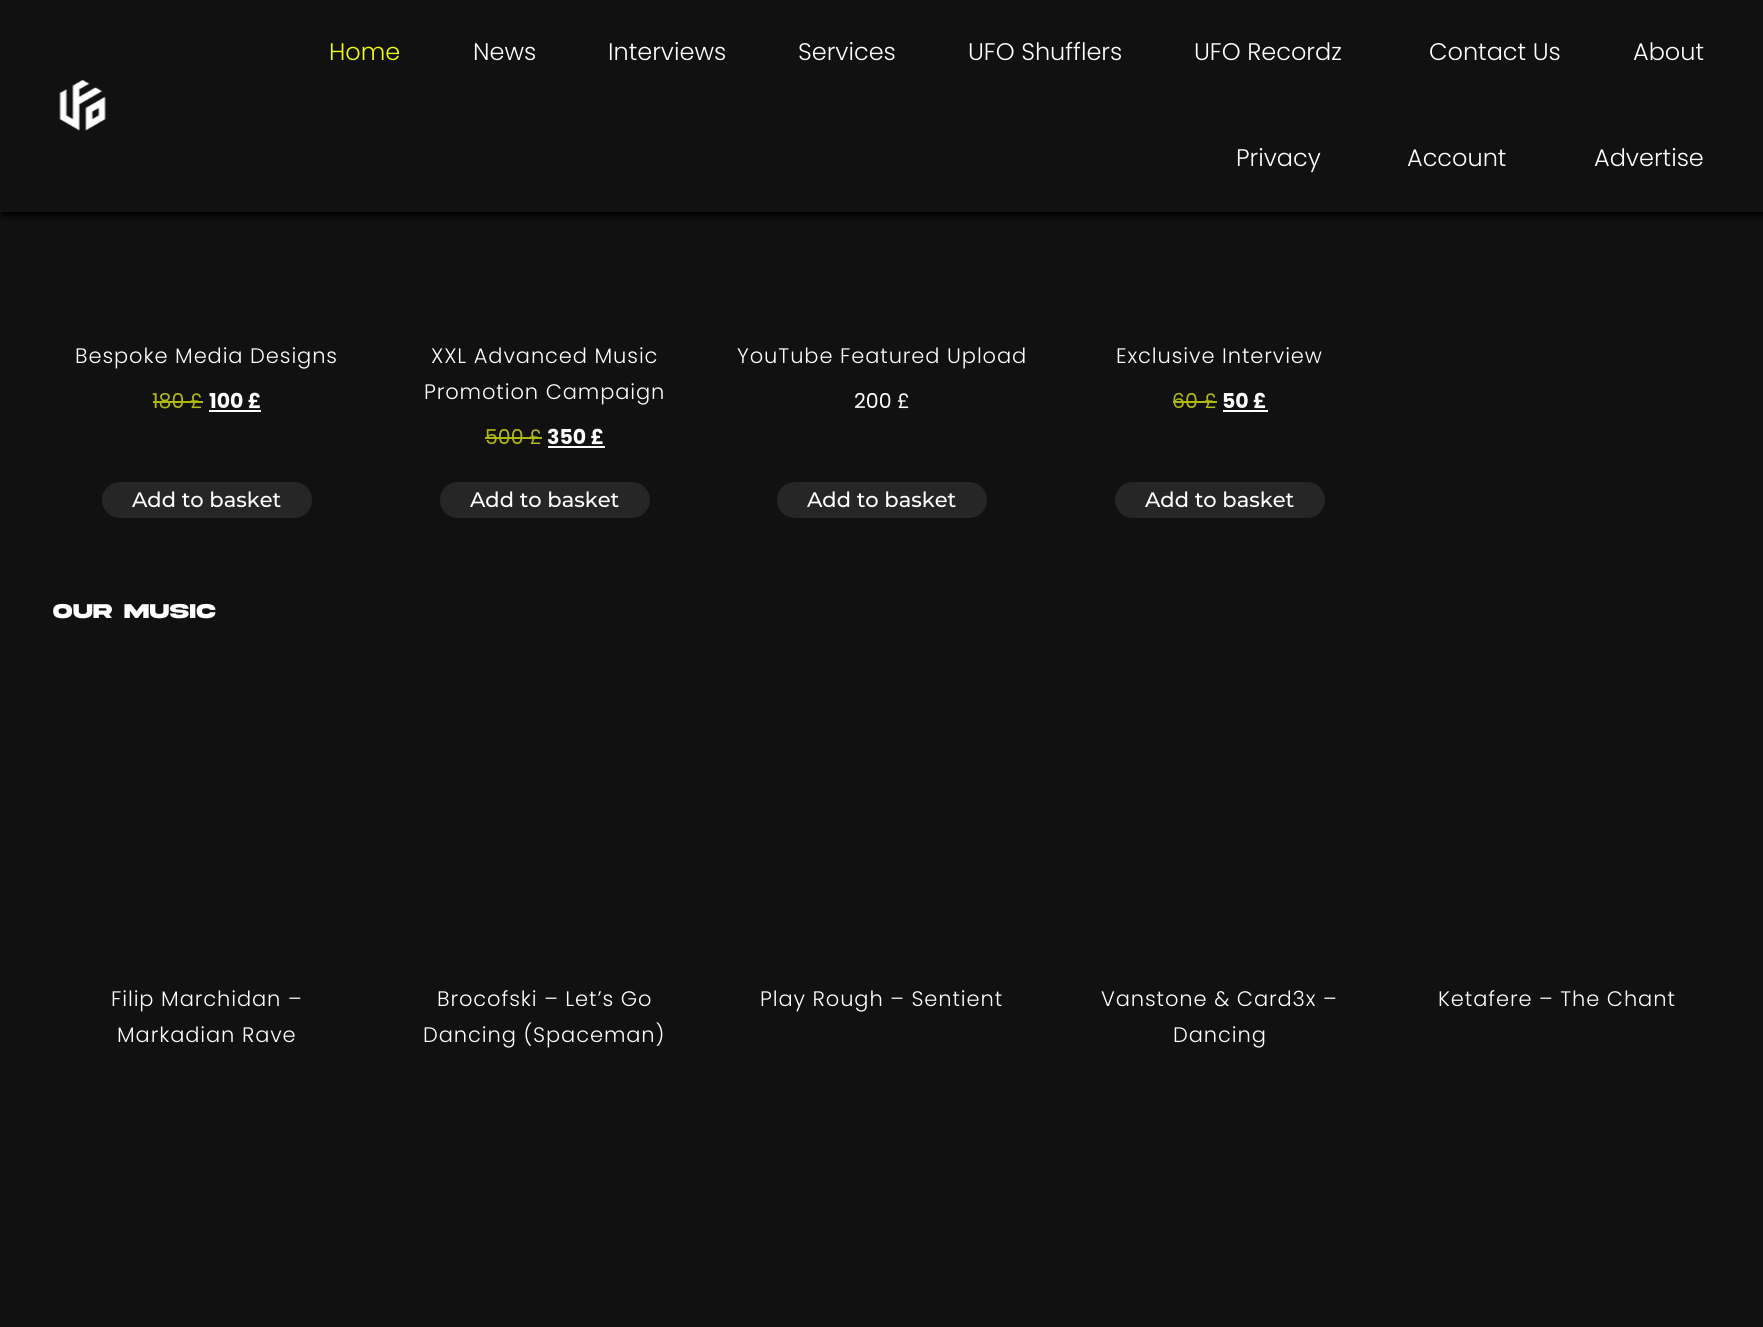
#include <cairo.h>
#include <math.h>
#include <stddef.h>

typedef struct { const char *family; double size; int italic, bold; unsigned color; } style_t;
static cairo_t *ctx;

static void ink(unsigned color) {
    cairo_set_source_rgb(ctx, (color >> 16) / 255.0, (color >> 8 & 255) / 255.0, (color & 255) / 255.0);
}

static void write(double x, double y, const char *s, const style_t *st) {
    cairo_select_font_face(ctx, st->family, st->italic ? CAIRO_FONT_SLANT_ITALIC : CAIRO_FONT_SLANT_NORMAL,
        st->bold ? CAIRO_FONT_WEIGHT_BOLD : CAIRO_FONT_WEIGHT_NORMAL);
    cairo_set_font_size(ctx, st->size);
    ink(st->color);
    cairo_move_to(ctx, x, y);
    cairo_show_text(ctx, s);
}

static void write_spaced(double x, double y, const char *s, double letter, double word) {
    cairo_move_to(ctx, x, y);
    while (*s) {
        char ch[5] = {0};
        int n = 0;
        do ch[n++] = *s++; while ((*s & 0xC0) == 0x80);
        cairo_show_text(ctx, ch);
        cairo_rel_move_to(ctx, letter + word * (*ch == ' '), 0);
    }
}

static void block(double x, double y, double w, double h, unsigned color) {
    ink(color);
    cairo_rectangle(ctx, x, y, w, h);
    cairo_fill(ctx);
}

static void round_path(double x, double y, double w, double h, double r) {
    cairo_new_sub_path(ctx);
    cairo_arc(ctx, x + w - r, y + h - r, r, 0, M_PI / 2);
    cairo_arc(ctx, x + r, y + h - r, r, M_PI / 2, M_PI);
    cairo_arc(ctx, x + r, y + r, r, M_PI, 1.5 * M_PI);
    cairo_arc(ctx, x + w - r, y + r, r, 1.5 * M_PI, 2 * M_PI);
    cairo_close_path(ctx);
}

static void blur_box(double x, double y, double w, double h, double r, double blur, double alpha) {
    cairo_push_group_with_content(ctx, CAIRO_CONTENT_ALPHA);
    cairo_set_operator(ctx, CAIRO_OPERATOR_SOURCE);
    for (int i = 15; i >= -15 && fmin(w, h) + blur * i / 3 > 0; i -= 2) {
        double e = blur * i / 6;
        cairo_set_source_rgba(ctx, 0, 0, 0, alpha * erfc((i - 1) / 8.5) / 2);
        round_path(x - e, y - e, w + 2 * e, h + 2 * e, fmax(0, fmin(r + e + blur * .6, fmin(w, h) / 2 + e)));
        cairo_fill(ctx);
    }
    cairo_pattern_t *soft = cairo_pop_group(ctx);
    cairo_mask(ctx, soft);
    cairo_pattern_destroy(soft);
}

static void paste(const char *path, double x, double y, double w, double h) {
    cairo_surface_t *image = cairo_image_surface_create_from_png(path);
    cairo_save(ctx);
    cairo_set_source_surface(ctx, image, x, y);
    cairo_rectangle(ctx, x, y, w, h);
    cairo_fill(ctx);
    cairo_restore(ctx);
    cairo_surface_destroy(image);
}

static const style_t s1 = {"Poppins Light", 24, 0, 0, 0xf2ff13};
static const style_t s2 = {"Poppins Light", 24, 0, 0, 0xffffff};
static const style_t s3 = {"Poppins", 20.5, 0, 0, 0xafb812};
static const style_t s4 = {"Poppins", 20.5, 0, 1, 0xffffff};
static const style_t s5 = {"Montserrat Medium", 21, 0, 0, 0xffffff};
static const style_t s6 = {"Poppins", 20.5, 0, 0, 0xffffff};

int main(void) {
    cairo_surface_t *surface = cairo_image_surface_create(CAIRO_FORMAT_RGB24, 1763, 1327);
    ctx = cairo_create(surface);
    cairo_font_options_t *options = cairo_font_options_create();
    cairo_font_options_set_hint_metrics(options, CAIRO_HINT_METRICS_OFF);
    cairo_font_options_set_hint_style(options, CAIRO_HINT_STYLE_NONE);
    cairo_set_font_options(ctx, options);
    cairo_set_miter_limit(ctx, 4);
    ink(0x111111);
    cairo_paint(ctx);
    ink(0x000000);
    blur_box(2, 2, 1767, 214, 0, 3, 1);
    block(0, 0, 1763, 212, 0x111111);
    paste("pic1.png", 59, 79, 47, 52);
    write(329, 60, "Home", &s1);
    write(473, 60, "News", &s2);
    write(608, 60, "Interviews", &s2);
    write(798, 60, "Services", &s2);
    write(968, 60, "UFO Shufflers", &s2);
    write(1194, 60, "UFO Recordz", &s2);
    write(1429, 60, "Contact Us", &s2);
    write(1633, 60, "About", &s2);
    write(1236, 166, "Privacy", &s2);
    write(1407, 166, "Account", &s2);
    write(1594, 166, "Advertise", &s2);
    cairo_set_font_size(ctx, 21);
    write_spaced(75, 363, "Bespoke Media Designs", 0.9, 0);
    write(152, 408, "180 £", &s3);
    block(153, 401, 50, 2, 0xafb812);
    write(209, 408, "100 £", &s4);
    block(209, 410, 52, 2, 0xffffff);
    ink(0x262626);
    round_path(102, 482, 210, 36, 18);
    cairo_fill(ctx);
    write(132, 507, "Add to basket", &s5);
    cairo_select_font_face(ctx, "Poppins Light", CAIRO_FONT_SLANT_NORMAL, CAIRO_FONT_WEIGHT_NORMAL);
    write_spaced(431, 363, "XXL Advanced Music", 0.9, 0);
    write_spaced(424, 399, "Promotion Campaign", 0.9, 0);
    write(485, 444, "500 £", &s3);
    block(485, 437, 57, 2, 0xafb812);
    write(547, 444, "350 £", &s4);
    block(548, 446, 57, 2, 0xffffff);
    ink(0x262626);
    round_path(440, 482, 210, 36, 18);
    cairo_fill(ctx);
    write(470, 507, "Add to basket", &s5);
    cairo_select_font_face(ctx, "Poppins Light", CAIRO_FONT_SLANT_NORMAL, CAIRO_FONT_WEIGHT_NORMAL);
    write_spaced(737, 363, "YouTube Featured Upload", 0.9, 0);
    write(854, 408, "200 £", &s6);
    ink(0x262626);
    round_path(777, 482, 210, 36, 18);
    cairo_fill(ctx);
    write(807, 507, "Add to basket", &s5);
    cairo_select_font_face(ctx, "Poppins Light", CAIRO_FONT_SLANT_NORMAL, CAIRO_FONT_WEIGHT_NORMAL);
    write_spaced(1116, 363, "Exclusive Interview", 0.9, 0);
    write(1172, 408, "60", &s3);
    block(1173, 401, 32, 2, 0xafb812);
    write(1204, 408, "£", &s3);
    block(1205, 401, 12, 2, 0xafb812);
    write(1222, 408, "50 £", &s4);
    block(1223, 410, 45, 2, 0xffffff);
    ink(0x262626);
    round_path(1115, 482, 210, 36, 18);
    cairo_fill(ctx);
    write(1145, 507, "Add to basket", &s5);
    cairo_select_font_face(ctx, "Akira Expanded", CAIRO_FONT_SLANT_NORMAL, CAIRO_FONT_WEIGHT_BOLD);
    write_spaced(53, 618, "Our Music", 0.9, 0);
    cairo_select_font_face(ctx, "Poppins Light", CAIRO_FONT_SLANT_NORMAL, CAIRO_FONT_WEIGHT_NORMAL);
    write_spaced(111, 1006, "Filip Marchidan –", 0.9, 0);
    write_spaced(117, 1042, "Markadian Rave", 0.9, 0);
    write_spaced(437, 1006, "Brocofski – Let’s Go", 0.9, 0);
    write_spaced(423, 1042, "Dancing (Spaceman)", 0.9, 0);
    write_spaced(760, 1006, "Play Rough – Sentient", 0.9, 0);
    write_spaced(1101, 1006, "Vanstone & Card3x –", 0.9, 0);
    write_spaced(1173, 1042, "Dancing", 0.9, 0);
    write_spaced(1438, 1006, "Ketafere – The Chant", 0.9, 0);
    cairo_surface_write_to_png(surface, "screenshot.png");
    cairo_font_options_destroy(options);
    cairo_destroy(ctx);
    cairo_surface_destroy(surface);
    return 0;
}
